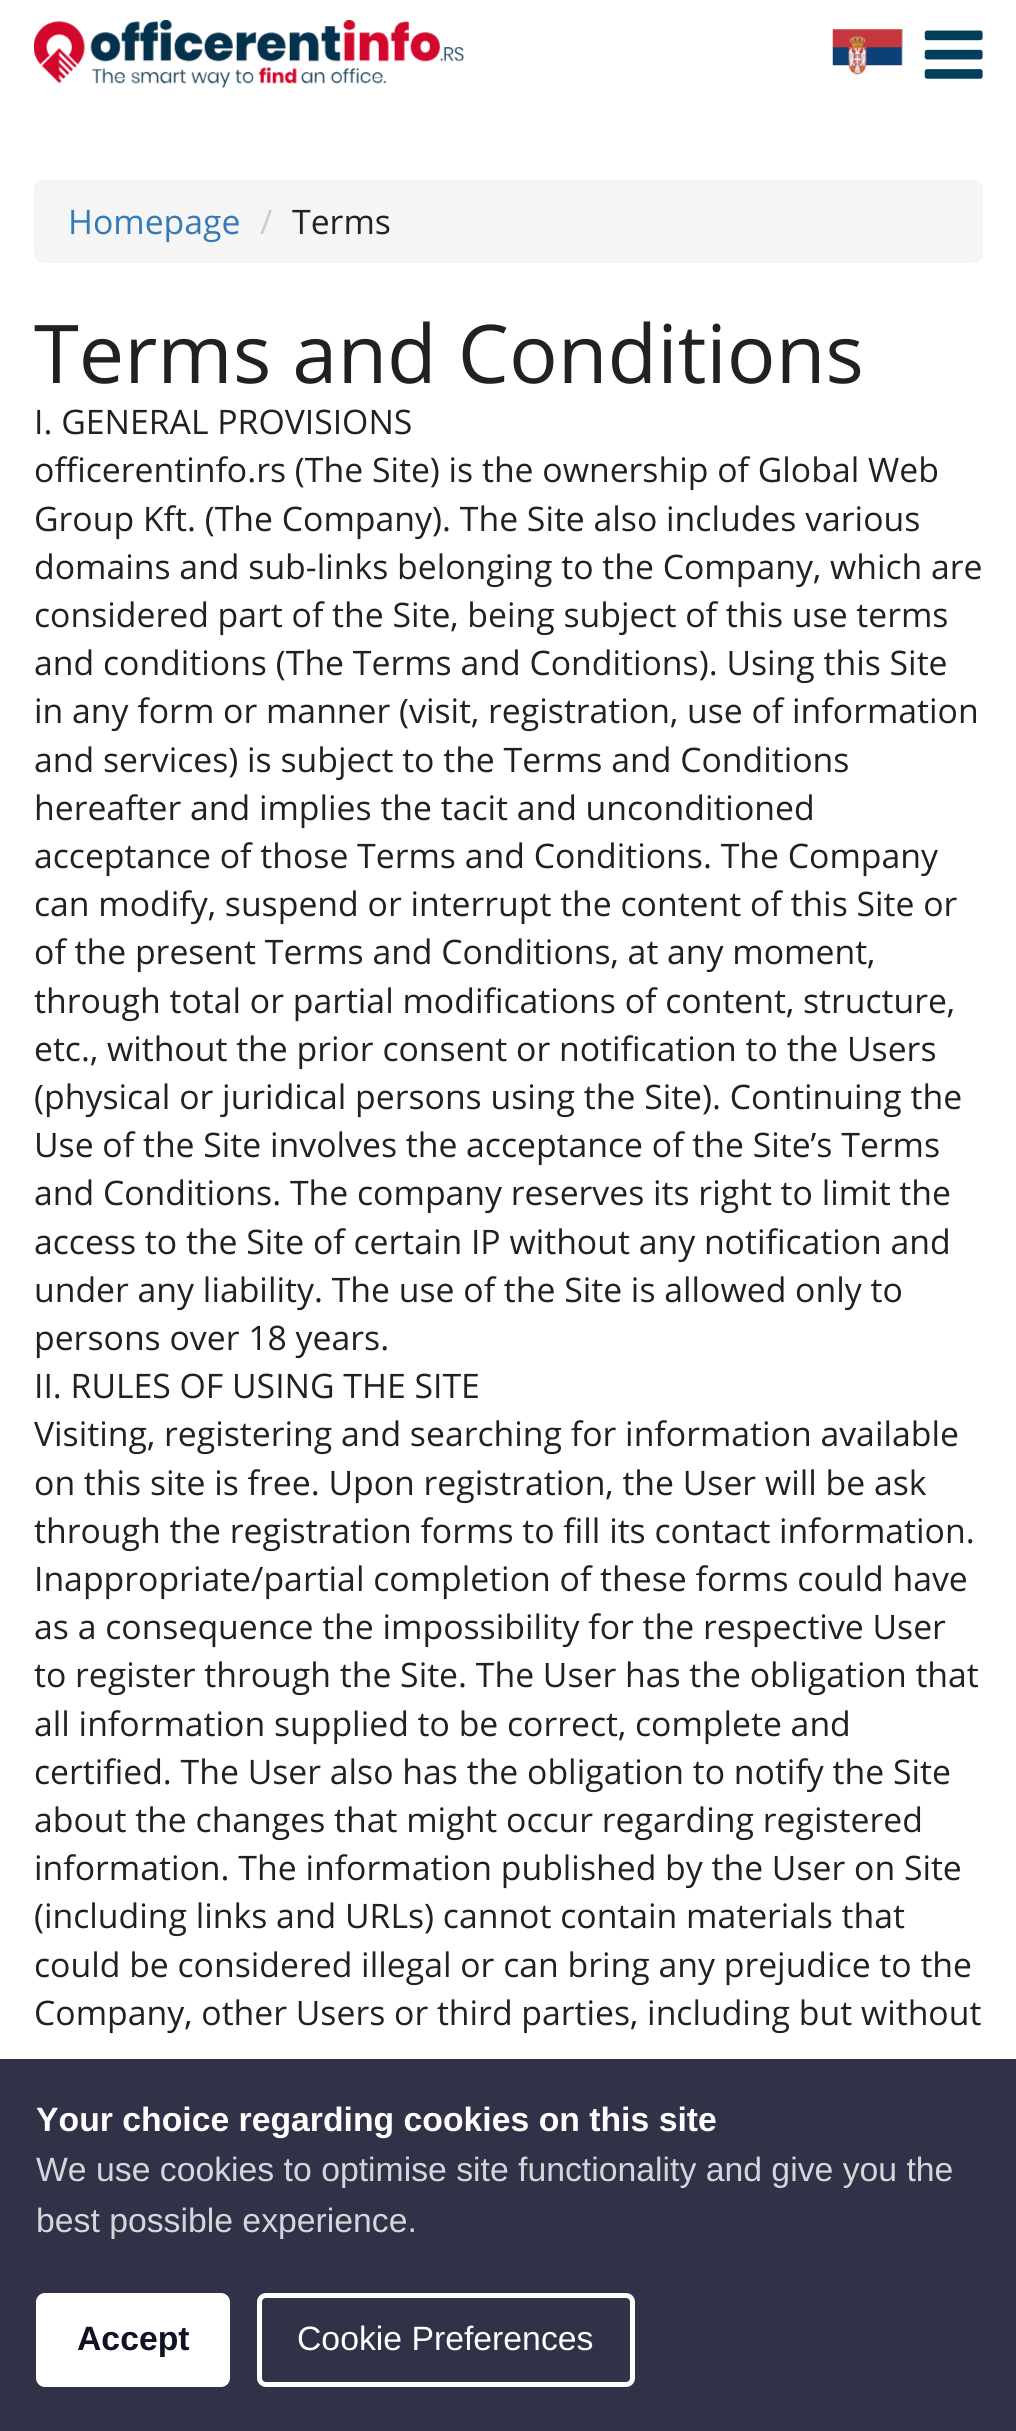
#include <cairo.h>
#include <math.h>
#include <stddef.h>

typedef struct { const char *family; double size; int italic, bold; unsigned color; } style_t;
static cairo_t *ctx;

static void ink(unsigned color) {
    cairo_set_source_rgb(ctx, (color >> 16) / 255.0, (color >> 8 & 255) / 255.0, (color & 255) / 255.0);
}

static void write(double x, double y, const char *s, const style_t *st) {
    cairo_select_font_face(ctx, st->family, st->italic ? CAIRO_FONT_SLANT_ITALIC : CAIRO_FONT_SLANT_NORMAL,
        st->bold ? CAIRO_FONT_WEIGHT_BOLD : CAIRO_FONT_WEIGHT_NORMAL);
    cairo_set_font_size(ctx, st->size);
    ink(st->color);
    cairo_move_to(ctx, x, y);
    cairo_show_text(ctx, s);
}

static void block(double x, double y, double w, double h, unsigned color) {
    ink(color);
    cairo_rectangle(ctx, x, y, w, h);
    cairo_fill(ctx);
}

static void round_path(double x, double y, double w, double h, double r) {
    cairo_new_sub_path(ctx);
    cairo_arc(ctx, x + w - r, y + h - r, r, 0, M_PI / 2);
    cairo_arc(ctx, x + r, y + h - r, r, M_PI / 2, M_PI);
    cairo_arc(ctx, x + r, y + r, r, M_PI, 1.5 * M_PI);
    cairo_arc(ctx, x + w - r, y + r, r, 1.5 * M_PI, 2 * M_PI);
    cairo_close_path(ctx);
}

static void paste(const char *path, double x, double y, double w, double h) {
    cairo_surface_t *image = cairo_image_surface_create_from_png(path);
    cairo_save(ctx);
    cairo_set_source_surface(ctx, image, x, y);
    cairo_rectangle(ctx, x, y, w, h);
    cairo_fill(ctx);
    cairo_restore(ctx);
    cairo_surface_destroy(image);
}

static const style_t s1 = {"Open Sans", 33.75, 0, 0, 0x337ab7};
static const style_t s2 = {"Open Sans", 33.75, 0, 0, 0xcccccc};
static const style_t s3 = {"Open Sans", 33.75, 0, 0, 0x212121};
static const style_t s4 = {"Open Sans", 81, 0, 0, 0x212121};
static const style_t s5 = {"Liberation Sans", 33.75, 0, 1, 0xffffff};
static const style_t s6 = {"Liberation Sans", 33.75, 0, 0, 0xd6d6da};
static const style_t s7 = {"Liberation Sans", 33.75, 0, 1, 0x111125};
static const style_t s8 = {"Liberation Sans", 33.75, 0, 0, 0xffffff};

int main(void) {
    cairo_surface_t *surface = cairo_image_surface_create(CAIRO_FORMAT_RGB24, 1016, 2431);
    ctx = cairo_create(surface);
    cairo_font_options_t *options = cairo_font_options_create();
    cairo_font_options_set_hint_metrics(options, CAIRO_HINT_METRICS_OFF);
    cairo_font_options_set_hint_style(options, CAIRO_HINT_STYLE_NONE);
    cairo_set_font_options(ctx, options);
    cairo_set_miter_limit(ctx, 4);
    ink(0xffffff);
    cairo_paint(ctx);
    paste("pic1.png", 34, 20, 430, 68);
    paste("pic2.png", 832, 29, 71, 46);
    paste("pic3.png", 924, 30, 59, 49);
    ink(0xf5f5f5);
    round_path(34, 180, 949, 83, 9);
    cairo_fill(ctx);
    write(68, 234, "Homepage", &s1);
    write(260, 234, "/", &s2);
    write(292, 234, "Terms", &s3);
    write(34, 383, "Terms and Conditions", &s4);
    write(34, 434, "I. GENERAL PROVISIONS", &s3);
    write(34, 482, "officerentinfo.rs (The Site) is the ownership of Global Web", &s3);
    write(34, 531, "Group Kft. (The Company). The Site also includes various", &s3);
    write(34, 579, "domains and sub-links belonging to the Company, which are", &s3);
    write(34, 627, "considered part of the Site, being subject of this use terms", &s3);
    write(34, 675, "and conditions (The Terms and Conditions). Using this Site", &s3);
    write(34, 723, "in any form or manner (visit, registration, use of information", &s3);
    write(34, 772, "and services) is subject to the Terms and Conditions", &s3);
    write(34, 820, "hereafter and implies the tacit and unconditioned", &s3);
    write(34, 868, "acceptance of those Terms and Conditions. The Company", &s3);
    write(34, 916, "can modify, suspend or interrupt the content of this Site or", &s3);
    write(34, 964, "of the present Terms and Conditions, at any moment,", &s3);
    write(34, 1013, "through total or partial modifications of content, structure,", &s3);
    write(34, 1061, "etc., without the prior consent or notification to the Users", &s3);
    write(34, 1109, "(physical or juridical persons using the Site). Continuing the", &s3);
    write(34, 1157, "Use of the Site involves the acceptance of the Site’s Terms", &s3);
    write(34, 1205, "and Conditions. The company reserves its right to limit the", &s3);
    write(34, 1254, "access to the Site of certain IP without any notification and", &s3);
    write(34, 1302, "under any liability. The use of the Site is allowed only to", &s3);
    write(34, 1350, "persons over 18 years.", &s3);
    write(34, 1398, "II. RULES OF USING THE SITE", &s3);
    write(34, 1446, "Visiting, registering and searching for information available", &s3);
    write(34, 1495, "on this site is free. Upon registration, the User will be ask", &s3);
    write(34, 1543, "through the registration forms to fill its contact information.", &s3);
    write(34, 1591, "Inappropriate/partial completion of these forms could have", &s3);
    write(34, 1639, "as a consequence the impossibility for the respective User", &s3);
    write(34, 1687, "to register through the Site. The User has the obligation that", &s3);
    write(34, 1736, "all information supplied to be correct, complete and", &s3);
    write(34, 1784, "certified. The User also has the obligation to notify the Site", &s3);
    write(34, 1832, "about the changes that might occur regarding registered", &s3);
    write(34, 1880, "information. The information published by the User on Site", &s3);
    write(34, 1928, "(including links and URLs) cannot contain materials that", &s3);
    write(34, 1977, "could be considered illegal or can bring any prejudice to the", &s3);
    write(34, 2025, "Company, other Users or third parties, including but without", &s3);
    block(0, 2059, 1016, 372, 0x313147);
    write(36, 2131, "Your choice regarding cookies on this site", &s5);
    write(36, 2181, "We use cookies to optimise site functionality and give you the", &s6);
    write(36, 2232, "best possible experience.", &s6);
    ink(0xffffff);
    round_path(38.5, 2295.5, 189, 89, 6.5);
    cairo_fill_preserve(ctx);
    cairo_set_line_width(ctx, 5);
    cairo_stroke(ctx);
    write(77, 2350, "Accept", &s7);
    round_path(259.5, 2295.5, 373, 89, 6.5);
    ink(0xffffff);
    cairo_stroke(ctx);
    write(297, 2350, "Cookie Preferences", &s8);
    cairo_surface_write_to_png(surface, "screenshot.png");
    cairo_font_options_destroy(options);
    cairo_destroy(ctx);
    cairo_surface_destroy(surface);
    return 0;
}
